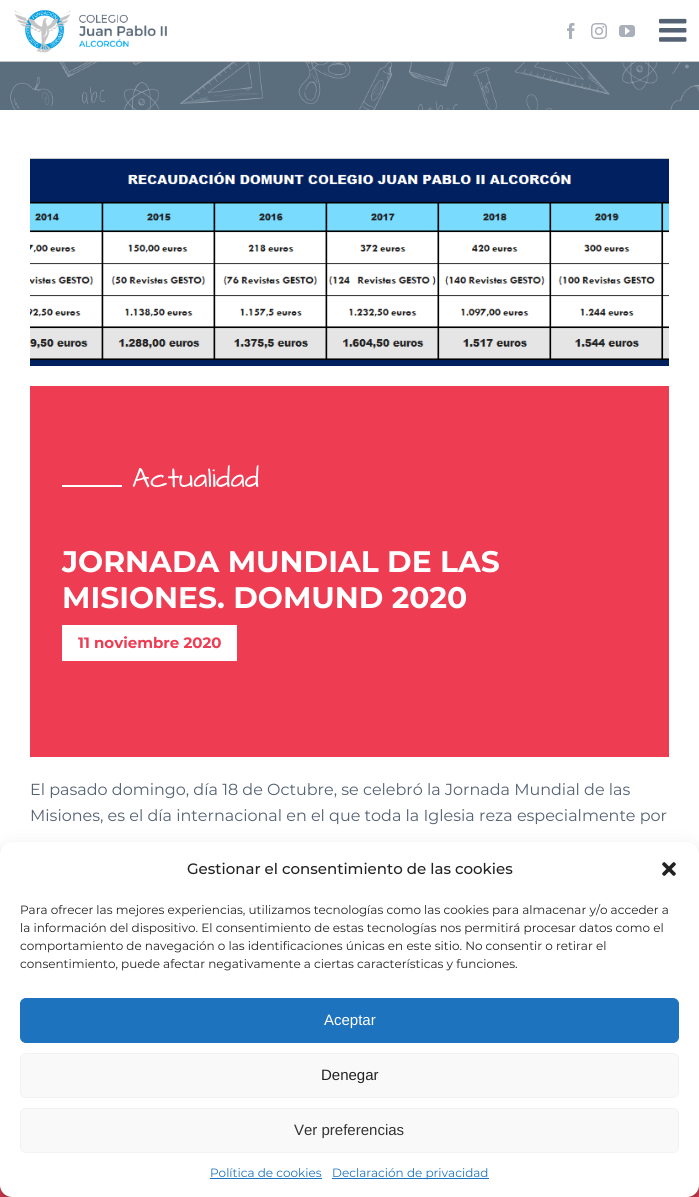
#include <cairo.h>
#include <math.h>
#include <stddef.h>

typedef struct { const char *family; double size; int italic, bold; unsigned color; } style_t;
static cairo_t *ctx;

static void ink(unsigned color) {
    cairo_set_source_rgb(ctx, (color >> 16) / 255.0, (color >> 8 & 255) / 255.0, (color & 255) / 255.0);
}

static void write(double x, double y, const char *s, const style_t *st) {
    cairo_select_font_face(ctx, st->family, st->italic ? CAIRO_FONT_SLANT_ITALIC : CAIRO_FONT_SLANT_NORMAL,
        st->bold ? CAIRO_FONT_WEIGHT_BOLD : CAIRO_FONT_WEIGHT_NORMAL);
    cairo_set_font_size(ctx, st->size);
    ink(st->color);
    cairo_move_to(ctx, x, y);
    cairo_show_text(ctx, s);
}

static void block(double x, double y, double w, double h, unsigned color) {
    ink(color);
    cairo_rectangle(ctx, x, y, w, h);
    cairo_fill(ctx);
}

static void round_path(double x, double y, double w, double h, double r) {
    cairo_new_sub_path(ctx);
    cairo_arc(ctx, x + w - r, y + h - r, r, 0, M_PI / 2);
    cairo_arc(ctx, x + r, y + h - r, r, M_PI / 2, M_PI);
    cairo_arc(ctx, x + r, y + r, r, M_PI, 1.5 * M_PI);
    cairo_arc(ctx, x + w - r, y + r, r, 1.5 * M_PI, 2 * M_PI);
    cairo_close_path(ctx);
}

static void blur_box(double x, double y, double w, double h, double r, double blur, double alpha) {
    cairo_push_group_with_content(ctx, CAIRO_CONTENT_ALPHA);
    cairo_set_operator(ctx, CAIRO_OPERATOR_SOURCE);
    for (int i = 15; i >= -15 && fmin(w, h) + blur * i / 3 > 0; i -= 2) {
        double e = blur * i / 6;
        cairo_set_source_rgba(ctx, 0, 0, 0, alpha * erfc((i - 1) / 8.5) / 2);
        round_path(x - e, y - e, w + 2 * e, h + 2 * e, fmax(0, fmin(r + e + blur * .6, fmin(w, h) / 2 + e)));
        cairo_fill(ctx);
    }
    cairo_pattern_t *soft = cairo_pop_group(ctx);
    cairo_mask(ctx, soft);
    cairo_pattern_destroy(soft);
}

static void paste(const char *path, double x, double y, double w, double h) {
    cairo_surface_t *image = cairo_image_surface_create_from_png(path);
    cairo_save(ctx);
    cairo_set_source_surface(ctx, image, x, y);
    cairo_rectangle(ctx, x, y, w, h);
    cairo_fill(ctx);
    cairo_restore(ctx);
    cairo_surface_destroy(image);
}

static const style_t s1 = {"Architects Daughter", 28, 0, 0, 0xffffff};
static const style_t s2 = {"Montserrat", 29.75, 0, 1, 0xffffff};
static const style_t s3 = {"Montserrat", 15, 0, 1, 0xee3c53};
static const style_t s4 = {"Montserrat", 16, 0, 0, 0x556273};
static const style_t s5 = {"Montserrat Medium", 15, 0, 0, 0x222222};
static const style_t s6 = {"Montserrat", 12, 0, 0, 0x222222};
static const style_t s7 = {"Liberation Sans", 15, 0, 0, 0xffffff};
static const style_t s8 = {"Liberation Sans", 15, 0, 0, 0x222222};
static const style_t s9 = {"Liberation Sans", 15, 0, 0, 0x333333};
static const style_t s10 = {"Montserrat", 12, 0, 0, 0x1e73be};

int main(void) {
    cairo_surface_t *surface = cairo_image_surface_create(CAIRO_FORMAT_RGB24, 699, 1197);
    ctx = cairo_create(surface);
    cairo_font_options_t *options = cairo_font_options_create();
    cairo_font_options_set_hint_metrics(options, CAIRO_HINT_METRICS_OFF);
    cairo_font_options_set_hint_style(options, CAIRO_HINT_STYLE_NONE);
    cairo_set_font_options(ctx, options);
    cairo_set_miter_limit(ctx, 4);
    ink(0xffffff);
    cairo_paint(ctx);
    block(0, 61, 699, 1, 0xc5c5c5);
    paste("pic1.png", 14, 10, 153, 43);
    paste("pic2.png", 567, 23, 8, 16);
    paste("pic3.png", 591, 23, 16, 16);
    paste("pic4.png", 619, 25, 16, 12);
    paste("pic5.png", 659, 18, 28, 24);
    paste("pic6.png", 0, 62, 699, 48);
    paste("pic7.png", 30, 158, 639, 208);
    block(30, 386, 639, 371, 0xee3c53);
    block(62, 485, 60, 2, 0xffffff);
    write(132, 487, "Actualidad", &s1);
    write(62, 572, "JORNADA MUNDIAL DE LAS", &s2);
    write(62, 608, "MISIONES. DOMUND 2020", &s2);
    block(62, 625, 175, 36, 0xffffff);
    write(78, 648, "11 noviembre 2020", &s3);
    write(30, 795, "El pasado domingo, día 18 de Octubre, se celebró la Jornada Mundial de las", &s4);
    write(30, 821, "Misiones, es el día internacional en el que toda la Iglesia reza especialmente por", &s4);
    block(0, 1185, 699, 12, 0xec4058);
    ink(0x000000);
    blur_box(0, 848, 699, 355, 12, 3, 0.23);
    blur_box(0, 852, 699, 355, 12, 10, 0.19);
    ink(0xffffff);
    round_path(0, 842, 699, 355, 12);
    cairo_fill(ctx);
    write(187, 874, "Gestionar el consentimiento de las cookies", &s5);
    paste("pic8.png", 662, 862, 14, 14);
    write(20, 914, "Para ofrecer las mejores experiencias, utilizamos tecnologías como las cookies para almacenar y/o acceder a", &s6);
    write(20, 932, "la información del dispositivo. El consentimiento de estas tecnologías nos permitirá procesar datos como el", &s6);
    write(20, 950, "comportamiento de navegación o las identificaciones únicas en este sitio. No consentir o retirar el", &s6);
    write(20, 968, "consentimiento, puede afectar negativamente a ciertas características y funciones.", &s6);
    ink(0x1e73be);
    round_path(20.5, 998.5, 658, 44, 5.5);
    cairo_fill_preserve(ctx);
    cairo_set_line_width(ctx, 1);
    cairo_stroke(ctx);
    write(324, 1025, "Aceptar", &s7);
    ink(0xf9f9f9);
    round_path(20.5, 1053.5, 658, 44, 5.5);
    cairo_fill_preserve(ctx);
    ink(0xf2f2f2);
    cairo_stroke(ctx);
    write(321, 1080, "Denegar", &s8);
    ink(0xf9f9f9);
    round_path(20.5, 1108.5, 658, 44, 5.5);
    cairo_fill_preserve(ctx);
    ink(0xf2f2f2);
    cairo_stroke(ctx);
    write(294, 1135, "Ver preferencias", &s9);
    write(210, 1177, "Política de cookies", &s10);
    block(210, 1178, 112, 1, 0x1e73be);
    block(332, 1178, 157, 1, 0x1e73be);
    write(332, 1177, "Declaración de privacidad", &s10);
    cairo_surface_write_to_png(surface, "screenshot.png");
    cairo_font_options_destroy(options);
    cairo_destroy(ctx);
    cairo_surface_destroy(surface);
    return 0;
}
